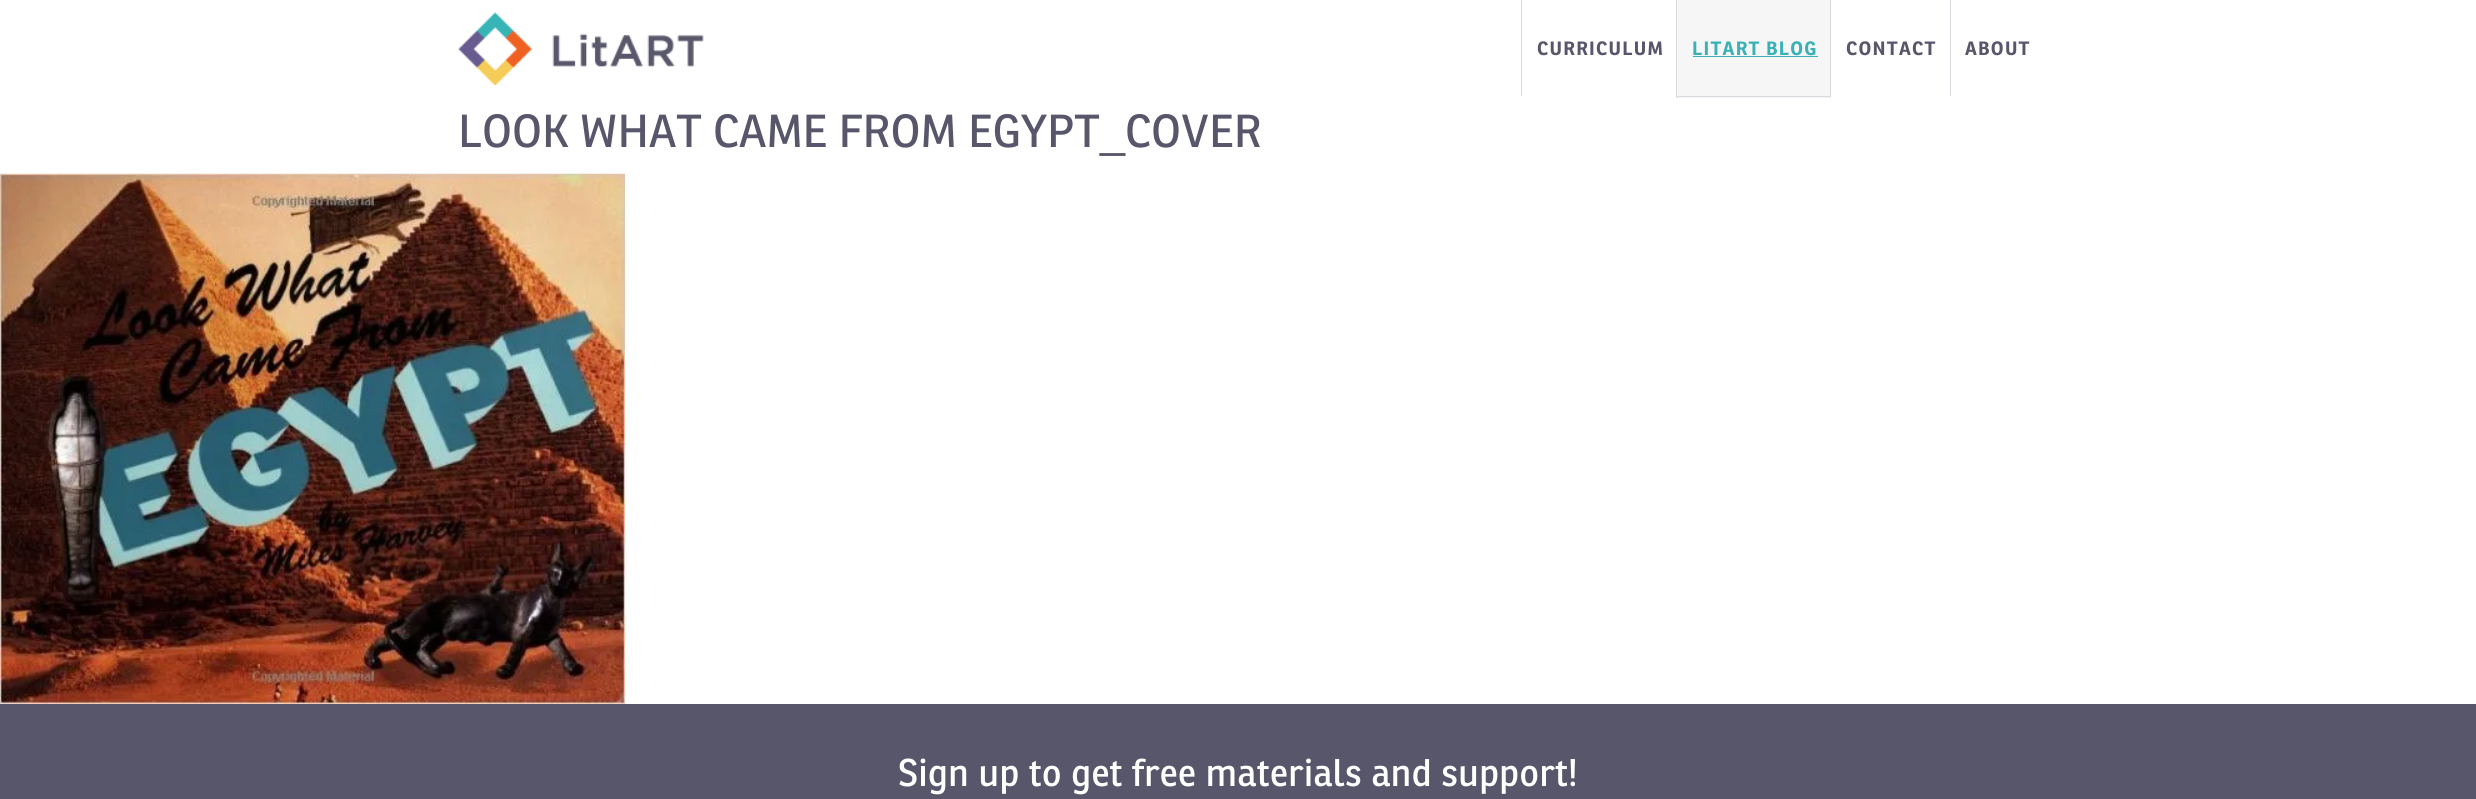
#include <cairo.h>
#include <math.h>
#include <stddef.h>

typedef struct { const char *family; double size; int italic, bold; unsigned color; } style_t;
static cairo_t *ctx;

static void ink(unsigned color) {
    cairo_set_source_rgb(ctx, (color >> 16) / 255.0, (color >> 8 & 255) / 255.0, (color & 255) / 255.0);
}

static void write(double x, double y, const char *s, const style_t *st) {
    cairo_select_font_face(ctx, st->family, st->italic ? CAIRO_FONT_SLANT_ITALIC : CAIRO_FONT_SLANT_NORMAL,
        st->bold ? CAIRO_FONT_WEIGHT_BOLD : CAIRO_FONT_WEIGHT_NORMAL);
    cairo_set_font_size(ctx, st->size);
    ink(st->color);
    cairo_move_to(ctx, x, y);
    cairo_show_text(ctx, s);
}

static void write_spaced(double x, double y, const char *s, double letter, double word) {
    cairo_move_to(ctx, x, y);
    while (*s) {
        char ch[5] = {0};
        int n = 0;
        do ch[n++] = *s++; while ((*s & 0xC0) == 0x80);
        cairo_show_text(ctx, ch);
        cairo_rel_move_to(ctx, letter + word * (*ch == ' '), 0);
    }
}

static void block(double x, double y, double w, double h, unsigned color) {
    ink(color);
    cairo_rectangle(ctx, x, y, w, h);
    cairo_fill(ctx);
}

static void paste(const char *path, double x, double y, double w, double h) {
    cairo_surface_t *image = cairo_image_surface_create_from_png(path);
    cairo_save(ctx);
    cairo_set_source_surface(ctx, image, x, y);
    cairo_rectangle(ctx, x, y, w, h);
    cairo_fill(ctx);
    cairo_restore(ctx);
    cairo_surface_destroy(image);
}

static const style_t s1 = {"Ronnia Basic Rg", 45, 0, 0, 0x58566a};
static const style_t s2 = {"Liberation Sans", 45, 0, 0, 0x58566a};
static const style_t s3 = {"Ronnia Basic Rg", 37.5, 0, 0, 0xffffff};

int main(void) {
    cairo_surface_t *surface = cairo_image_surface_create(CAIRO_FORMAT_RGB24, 2476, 799);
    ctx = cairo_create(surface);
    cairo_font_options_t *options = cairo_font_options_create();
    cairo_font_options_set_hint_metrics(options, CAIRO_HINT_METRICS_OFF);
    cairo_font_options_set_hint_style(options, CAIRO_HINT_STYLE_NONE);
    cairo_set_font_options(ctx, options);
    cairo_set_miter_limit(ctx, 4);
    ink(0xffffff);
    cairo_paint(ctx);
    paste("pic1.png", 458, 12, 246, 73);
    block(1521, 0, 1, 96, 0xdad9e0);
    cairo_select_font_face(ctx, "Ronnia Basic Rg", CAIRO_FONT_SLANT_NORMAL, CAIRO_FONT_WEIGHT_BOLD);
    cairo_set_font_size(ctx, 18.75);
    ink(0x58566a);
    write_spaced(1537, 55, "CURRICULUM", 1.25, 0);
    block(1677, 0, 154, 98, 0xf6f6f6);
    block(1676, 96, 155, 1, 0xdad9e0);
    block(1676, 0, 1, 98, 0xdad9e0);
    ink(0x39b1b5);
    write_spaced(1692, 55, "LITART BLOG", 1.25, 0);
    block(1693, 56, 125, 1, 0x39b1b5);
    block(1830, 0, 1, 96, 0xdad9e0);
    ink(0x58566a);
    write_spaced(1846, 55, "CONTACT", 1.25, 0);
    block(1950, 0, 1, 96, 0xdad9e0);
    ink(0x58566a);
    write_spaced(1965, 55, "ABOUT", 1.25, 0);
    write(458, 147, "LOOK WHAT CAME FROM EGYPT", &s1);
    write(1125, 147, "COVER", &s1);
    write(1100, 147, "_", &s2);
    paste("pic2.png", 0, 173, 625, 531);
    block(0, 704, 2476, 95, 0x58566a);
    write(898, 786, "Sign up to get free materials and support!", &s3);
    cairo_surface_write_to_png(surface, "screenshot.png");
    cairo_font_options_destroy(options);
    cairo_destroy(ctx);
    cairo_surface_destroy(surface);
    return 0;
}
